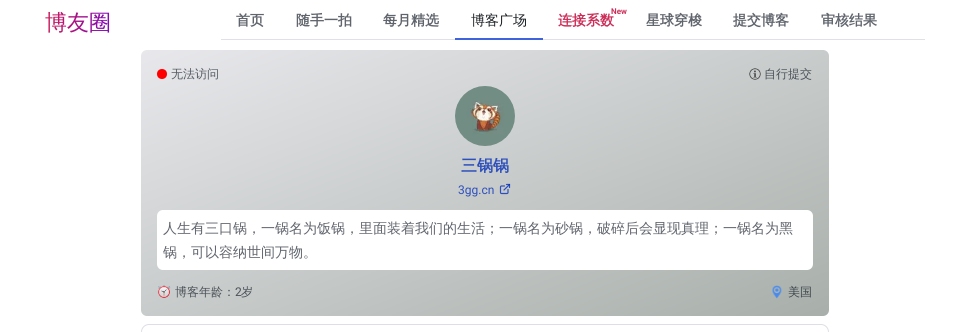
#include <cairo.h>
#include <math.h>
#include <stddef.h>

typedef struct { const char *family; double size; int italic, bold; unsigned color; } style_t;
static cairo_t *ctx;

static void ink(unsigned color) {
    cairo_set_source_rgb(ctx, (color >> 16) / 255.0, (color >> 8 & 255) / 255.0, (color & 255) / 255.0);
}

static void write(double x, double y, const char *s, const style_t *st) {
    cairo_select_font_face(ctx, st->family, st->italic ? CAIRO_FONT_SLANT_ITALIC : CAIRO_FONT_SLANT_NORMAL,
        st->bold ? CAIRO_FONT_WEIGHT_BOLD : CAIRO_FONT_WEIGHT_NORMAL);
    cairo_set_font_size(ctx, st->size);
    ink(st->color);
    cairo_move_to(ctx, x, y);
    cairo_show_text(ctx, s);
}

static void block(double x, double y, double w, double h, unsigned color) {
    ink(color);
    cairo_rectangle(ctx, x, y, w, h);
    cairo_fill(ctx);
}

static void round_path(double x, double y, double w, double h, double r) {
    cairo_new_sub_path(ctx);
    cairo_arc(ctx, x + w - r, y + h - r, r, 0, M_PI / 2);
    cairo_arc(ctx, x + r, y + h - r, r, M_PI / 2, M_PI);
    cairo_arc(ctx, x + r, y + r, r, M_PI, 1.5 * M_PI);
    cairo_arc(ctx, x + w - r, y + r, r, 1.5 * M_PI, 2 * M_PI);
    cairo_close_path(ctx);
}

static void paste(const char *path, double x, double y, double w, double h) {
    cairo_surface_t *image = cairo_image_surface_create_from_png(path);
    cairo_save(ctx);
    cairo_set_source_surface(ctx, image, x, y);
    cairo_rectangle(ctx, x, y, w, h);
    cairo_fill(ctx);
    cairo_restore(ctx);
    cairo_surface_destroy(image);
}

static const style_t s1 = {"WenQuanYi Zen Hei", 14, 0, 1, 0x60646c};
static const style_t s2 = {"WenQuanYi Zen Hei Medium", 14, 0, 0, 0x1c2024};
static const style_t s3 = {"Roboto", 8, 0, 1, 0xcb2e58};
static const style_t s4 = {"WenQuanYi Zen Hei", 14, 0, 1, 0xcb2e58};
static const style_t s5 = {"WenQuanYi Zen Hei Medium", 12, 0, 0, 0x555a63};
static const style_t s6 = {"WenQuanYi Zen Hei Medium", 12, 0, 0, 0x4b5158};
static const style_t s7 = {"WenQuanYi Zen Hei", 16, 0, 1, 0x2e50bc};
static const style_t s8 = {"Roboto", 12, 0, 0, 0x2e50bc};
static const style_t s9 = {"WenQuanYi Zen Hei Medium", 14, 0, 0, 0x60646c};
static const style_t s10 = {"Roboto", 12, 0, 0, 0x4b5158};
static const style_t s11 = {"WenQuanYi Zen Hei Medium", 12, 0, 0, 0x41484e};

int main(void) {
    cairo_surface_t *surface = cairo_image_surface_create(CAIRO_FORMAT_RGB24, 969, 332);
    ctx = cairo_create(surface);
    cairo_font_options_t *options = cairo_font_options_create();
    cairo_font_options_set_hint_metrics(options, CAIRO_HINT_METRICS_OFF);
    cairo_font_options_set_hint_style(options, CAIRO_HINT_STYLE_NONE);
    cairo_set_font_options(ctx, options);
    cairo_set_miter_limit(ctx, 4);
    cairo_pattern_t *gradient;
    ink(0xffffff);
    cairo_paint(ctx);
    cairo_select_font_face(ctx, "WenQuanYi Zen Hei Medium", CAIRO_FONT_SLANT_NORMAL, CAIRO_FONT_WEIGHT_NORMAL);
    cairo_set_font_size(ctx, 22);
    gradient = cairo_pattern_create_linear(45, 22, 111, 22);
    cairo_pattern_add_color_stop_rgba(gradient, 0, 0.804, 0.11, 0.341, 1);
    cairo_pattern_add_color_stop_rgba(gradient, 1, 0.494, 0.035, 0.722, 1);
    cairo_set_source(ctx, gradient);
    cairo_pattern_destroy(gradient);
    cairo_move_to(ctx, 45, 30);
    cairo_show_text(ctx, "博友圈");
    block(221, 39, 704, 1, 0xe0e1e6);
    write(236, 25, "首页", &s1);
    write(296, 25, "随手一拍", &s1);
    write(383, 25, "每月精选", &s1);
    write(471, 25, "博客广场", &s2);
    block(455, 38, 88, 2, 0x3e63dd);
    write(611, 14, "New", &s3);
    write(558, 25, "连接系数", &s4);
    write(646, 25, "星球穿梭", &s1);
    write(733, 25, "提交博客", &s1);
    write(821, 25, "审核结果", &s1);
    gradient = cairo_pattern_create_linear(396, -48, 574, 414);
    cairo_pattern_add_color_stop_rgba(gradient, 0, 0.91, 0.91, 0.925, 1);
    cairo_pattern_add_color_stop_rgba(gradient, 1, 0.659, 0.686, 0.667, 1);
    cairo_set_source(ctx, gradient);
    cairo_pattern_destroy(gradient);
    round_path(141, 50, 688, 266, 6);
    cairo_fill(ctx);
    ink(0xff0000);
    cairo_arc(ctx, 162, 74, 5, 0, 2 * M_PI);
    cairo_fill(ctx);
    write(171, 78, "无法访问", &s5);
    paste("pic1.png", 749, 68, 12, 12);
    write(764, 78, "自行提交", &s6);
    paste("pic2.png", 455, 86, 60, 60);
    write(461, 171, "三锅锅", &s7);
    write(458, 194, "3gg.cn", &s8);
    paste("pic3.png", 499, 183, 12, 12);
    ink(0xffffff);
    round_path(157, 210, 656, 60, 6);
    cairo_fill(ctx);
    write(163, 233, "人生有三口锅，一锅名为饭锅，里面装着我们的生活；一锅名为砂锅，破碎后会显现真理；一锅名为黑", &s9);
    write(163, 257, "锅，可以容纳世间万物。", &s9);
    paste("pic4.png", 158, 285, 13, 13);
    write(175, 296, "博客年龄：", &s6);
    write(235, 296, "2", &s10);
    write(241, 296, "岁", &s6);
    paste("pic5.png", 772, 285, 10, 14);
    write(788, 296, "美国", &s11);
    round_path(141.5, 324.5, 687, 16, 7.5);
    ink(0xdddfe5);
    cairo_set_line_width(ctx, 1);
    cairo_stroke(ctx);
    cairo_surface_write_to_png(surface, "screenshot.png");
    cairo_font_options_destroy(options);
    cairo_destroy(ctx);
    cairo_surface_destroy(surface);
    return 0;
}
